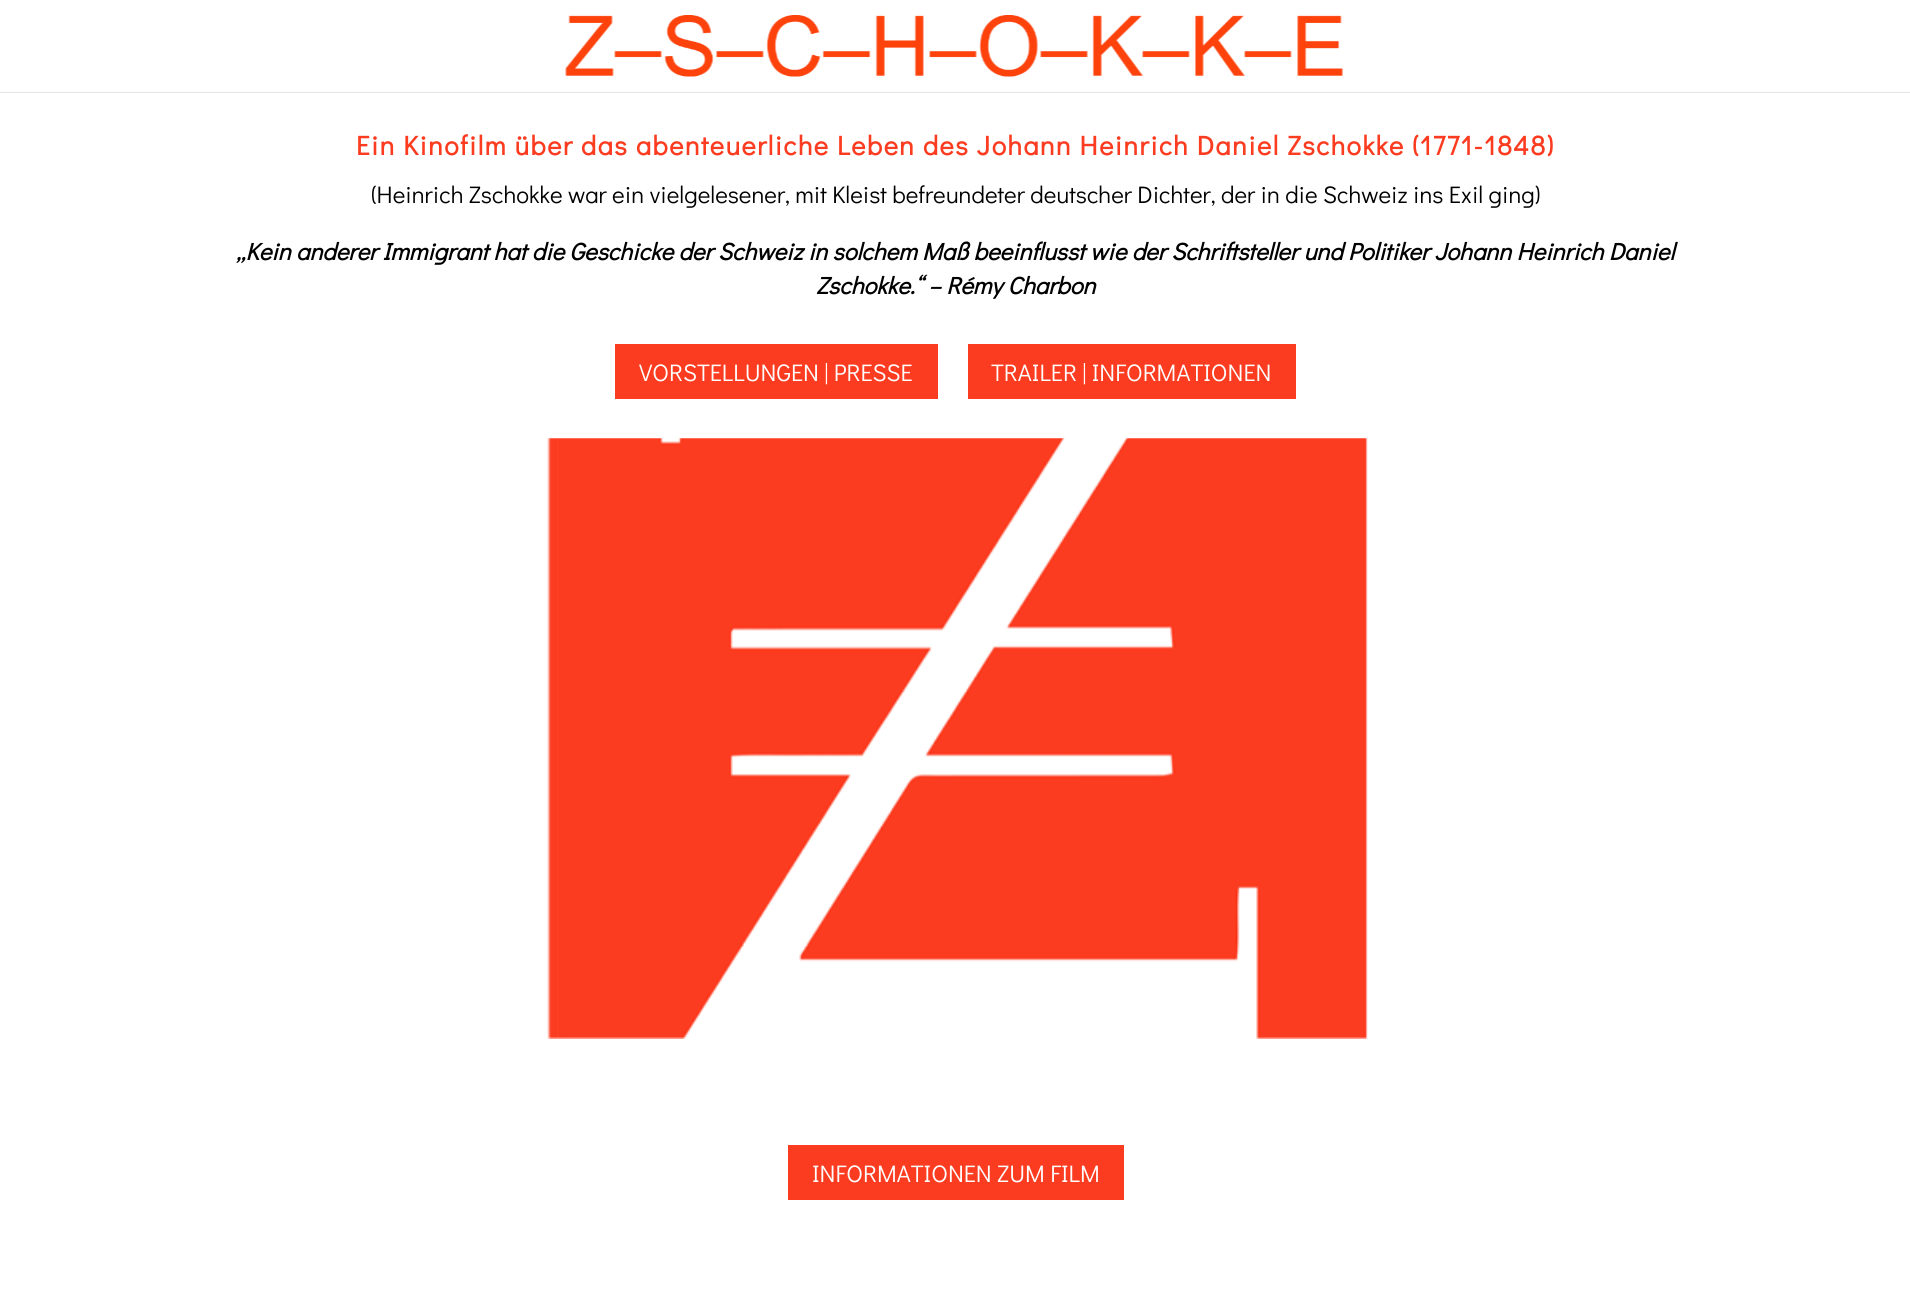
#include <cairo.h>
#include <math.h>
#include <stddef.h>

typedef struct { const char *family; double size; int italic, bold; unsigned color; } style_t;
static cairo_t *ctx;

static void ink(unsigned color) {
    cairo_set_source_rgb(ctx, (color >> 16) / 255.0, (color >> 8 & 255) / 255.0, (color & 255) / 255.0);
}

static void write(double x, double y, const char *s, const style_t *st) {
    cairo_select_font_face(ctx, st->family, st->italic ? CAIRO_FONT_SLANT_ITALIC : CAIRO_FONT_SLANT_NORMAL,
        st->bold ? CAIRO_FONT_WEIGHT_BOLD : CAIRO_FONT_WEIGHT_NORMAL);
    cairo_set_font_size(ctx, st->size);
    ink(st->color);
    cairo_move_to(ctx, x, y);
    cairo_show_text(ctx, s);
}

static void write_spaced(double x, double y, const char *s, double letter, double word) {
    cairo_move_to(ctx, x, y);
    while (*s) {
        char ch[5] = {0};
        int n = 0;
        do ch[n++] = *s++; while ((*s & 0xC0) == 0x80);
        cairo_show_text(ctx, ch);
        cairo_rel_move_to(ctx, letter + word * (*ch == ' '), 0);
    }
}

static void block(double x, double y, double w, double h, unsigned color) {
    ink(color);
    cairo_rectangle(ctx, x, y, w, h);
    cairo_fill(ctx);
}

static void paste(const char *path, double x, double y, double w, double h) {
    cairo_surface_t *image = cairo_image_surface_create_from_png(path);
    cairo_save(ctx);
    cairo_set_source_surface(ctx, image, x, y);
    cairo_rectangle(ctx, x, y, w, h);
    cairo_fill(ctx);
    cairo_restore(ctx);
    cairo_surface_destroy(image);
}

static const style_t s1 = {"Didact Gothic", 24, 0, 0, 0x000000};
static const style_t s2 = {"Didact Gothic", 24, 1, 1, 0x000000};
static const style_t s3 = {"Didact Gothic", 24, 0, 0, 0xffffff};

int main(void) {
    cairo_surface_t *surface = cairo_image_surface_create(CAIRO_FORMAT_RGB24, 1910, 1289);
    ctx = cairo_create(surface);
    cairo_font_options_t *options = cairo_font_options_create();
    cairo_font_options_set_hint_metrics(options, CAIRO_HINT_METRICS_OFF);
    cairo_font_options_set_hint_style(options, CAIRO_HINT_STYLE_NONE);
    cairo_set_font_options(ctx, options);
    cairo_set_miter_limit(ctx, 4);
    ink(0xffffff);
    cairo_paint(ctx);
    block(0, 92, 1910, 1, 0xe6e6e6);
    paste("pic1.png", 565, 15, 778, 62);
    cairo_select_font_face(ctx, "Didact Gothic", CAIRO_FONT_SLANT_NORMAL, CAIRO_FONT_WEIGHT_BOLD);
    cairo_set_font_size(ctx, 27);
    ink(0xfc3c20);
    write_spaced(356, 155, "Ein Kinofilm über das abenteuerliche Leben des Johann Heinrich Daniel Zschokke (1771-1848)", 1.5, 0);
    write(371, 203, "(Heinrich Zschokke war ein vielgelesener, mit Kleist befreundeter deutscher Dichter, der in die Schweiz ins Exil ging)", &s1);
    write(236, 260, "„Kein anderer Immigrant hat die Geschicke der Schweiz in solchem Maß beeinflusst wie der Schriftsteller und Politiker Johann Heinrich Daniel", &s2);
    write(816, 294, "Zschokke.“ – Rémy Charbon", &s2);
    block(615, 344, 323, 55, 0xfc3c20);
    write(639, 381, "VORSTELLUNGEN | PRESSE", &s3);
    block(968, 344, 328, 55, 0xfc3c20);
    write(991, 381, "TRAILER | INFORMATIONEN", &s3);
    paste("pic2.png", 547, 438, 821, 601);
    block(788, 1145, 336, 55, 0xfc3c20);
    write(812, 1182, "INFORMATIONEN ZUM FILM", &s3);
    cairo_surface_write_to_png(surface, "screenshot.png");
    cairo_font_options_destroy(options);
    cairo_destroy(ctx);
    cairo_surface_destroy(surface);
    return 0;
}
